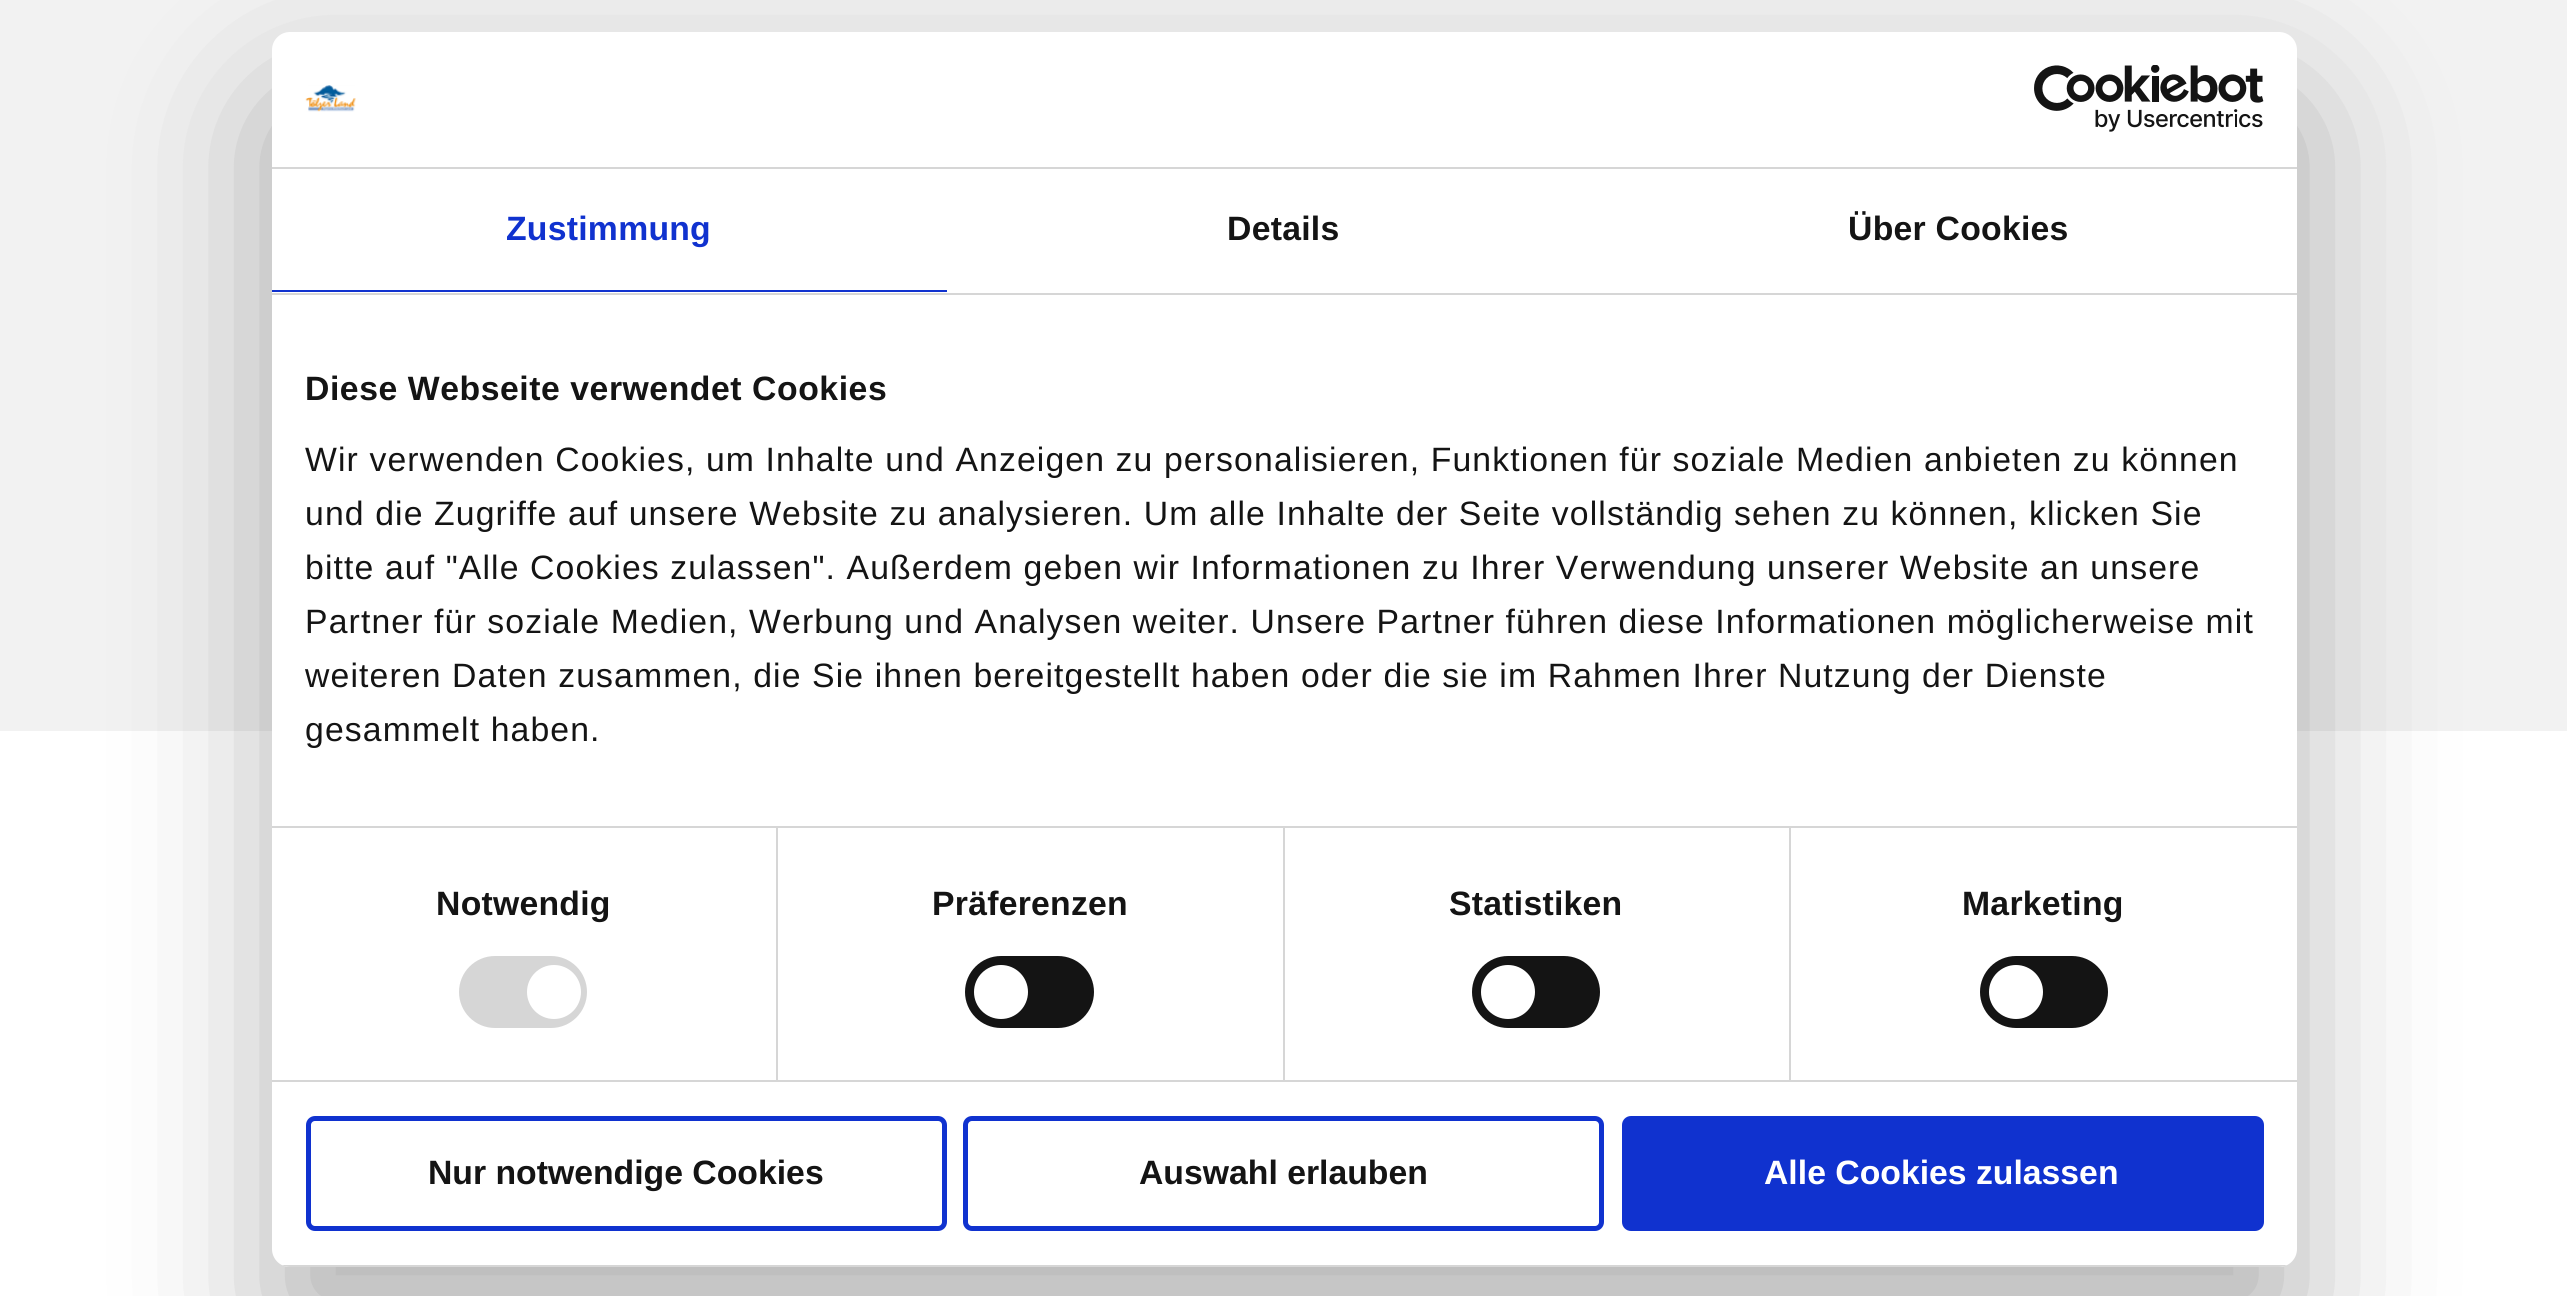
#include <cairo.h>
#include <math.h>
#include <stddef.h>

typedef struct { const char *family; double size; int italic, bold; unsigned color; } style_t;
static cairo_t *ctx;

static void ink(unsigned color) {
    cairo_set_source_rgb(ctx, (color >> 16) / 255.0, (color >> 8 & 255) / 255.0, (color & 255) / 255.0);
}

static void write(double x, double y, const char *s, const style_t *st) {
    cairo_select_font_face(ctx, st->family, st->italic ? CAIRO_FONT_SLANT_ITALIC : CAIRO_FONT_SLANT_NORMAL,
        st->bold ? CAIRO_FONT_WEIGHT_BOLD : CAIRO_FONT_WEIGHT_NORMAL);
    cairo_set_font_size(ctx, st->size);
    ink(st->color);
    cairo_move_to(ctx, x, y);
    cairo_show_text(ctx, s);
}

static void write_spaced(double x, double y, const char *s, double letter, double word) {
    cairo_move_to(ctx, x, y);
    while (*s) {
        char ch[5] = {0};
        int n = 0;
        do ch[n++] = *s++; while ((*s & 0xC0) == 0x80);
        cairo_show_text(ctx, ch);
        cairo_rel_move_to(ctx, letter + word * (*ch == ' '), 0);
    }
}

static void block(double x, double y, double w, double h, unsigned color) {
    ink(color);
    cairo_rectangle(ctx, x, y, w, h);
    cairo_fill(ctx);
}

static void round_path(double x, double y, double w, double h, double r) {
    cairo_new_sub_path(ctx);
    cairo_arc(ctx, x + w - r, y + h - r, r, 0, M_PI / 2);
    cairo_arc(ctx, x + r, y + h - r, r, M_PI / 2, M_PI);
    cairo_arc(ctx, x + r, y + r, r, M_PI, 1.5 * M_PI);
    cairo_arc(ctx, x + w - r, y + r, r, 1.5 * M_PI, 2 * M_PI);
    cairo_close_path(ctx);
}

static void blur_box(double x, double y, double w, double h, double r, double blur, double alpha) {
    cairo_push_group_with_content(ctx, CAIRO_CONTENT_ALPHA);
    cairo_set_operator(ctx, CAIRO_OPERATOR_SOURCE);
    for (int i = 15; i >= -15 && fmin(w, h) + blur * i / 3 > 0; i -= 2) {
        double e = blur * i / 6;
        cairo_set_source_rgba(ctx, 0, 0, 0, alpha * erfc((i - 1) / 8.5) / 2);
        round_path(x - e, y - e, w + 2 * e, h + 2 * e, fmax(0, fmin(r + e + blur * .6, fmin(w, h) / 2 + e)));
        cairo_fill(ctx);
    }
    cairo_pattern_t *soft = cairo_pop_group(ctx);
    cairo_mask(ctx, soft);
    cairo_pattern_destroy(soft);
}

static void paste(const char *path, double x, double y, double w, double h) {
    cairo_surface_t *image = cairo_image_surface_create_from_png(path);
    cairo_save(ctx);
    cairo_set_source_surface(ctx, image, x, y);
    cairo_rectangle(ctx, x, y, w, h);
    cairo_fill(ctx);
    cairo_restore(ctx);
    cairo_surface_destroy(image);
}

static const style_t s1 = {"Liberation Sans", 33.75, 0, 1, 0x141414};
static const style_t s2 = {"Liberation Sans", 33.75, 0, 1, 0xffffff};

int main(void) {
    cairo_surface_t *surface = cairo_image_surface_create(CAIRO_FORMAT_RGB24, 2567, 1296);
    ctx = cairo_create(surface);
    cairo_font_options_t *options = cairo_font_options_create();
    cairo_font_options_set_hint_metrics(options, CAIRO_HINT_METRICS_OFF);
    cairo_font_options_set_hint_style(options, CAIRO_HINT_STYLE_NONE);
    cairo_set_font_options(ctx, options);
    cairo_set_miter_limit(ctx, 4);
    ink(0xffffff);
    cairo_paint(ctx);
    block(0, 0, 2567, 731, 0xf2f2f2);
    ink(0x000000);
    blur_box(272, 104, 2025, 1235, 18, 76.5, 0.3);
    ink(0xffffff);
    round_path(272, 32, 2025, 1235, 18);
    cairo_fill(ctx);
    block(272, 167, 2025, 2, 0xd6d6d6);
    paste("pic1.png", 305, 85, 51, 27);
    paste("pic2.png", 2034, 65, 230, 67);
    block(272, 293, 2025, 2, 0xd6d6d6);
    block(272, 290, 675, 2, 0x1032cf);
    cairo_select_font_face(ctx, "Liberation Sans", CAIRO_FONT_SLANT_NORMAL, CAIRO_FONT_WEIGHT_BOLD);
    cairo_set_font_size(ctx, 33.75);
    write_spaced(506, 240, "Zustimmung", 0.25, 0);
    ink(0x141414);
    write_spaced(1227, 240, "Details", 0.25, 0);
    write_spaced(1848, 240, "Über Cookies", 0.25, 0);
    block(272, 826, 2025, 2, 0xd6d6d6);
    ink(0x141414);
    write_spaced(305, 400, "Diese Webseite verwendet Cookies", 0.55, 0);
    cairo_select_font_face(ctx, "Liberation Sans", CAIRO_FONT_SLANT_NORMAL, CAIRO_FONT_WEIGHT_NORMAL);
    write_spaced(305, 471, "Wir verwenden Cookies, um Inhalte und Anzeigen zu personalisieren, Funktionen für soziale Medien anbieten zu können", 1.12, 0);
    write_spaced(305, 525, "und die Zugriffe auf unsere Website zu analysieren. Um alle Inhalte der Seite vollständig sehen zu können, klicken Sie", 1.12, 0);
    write_spaced(305, 579, "bitte auf \"Alle Cookies zulassen\". Außerdem geben wir Informationen zu Ihrer Verwendung unserer Website an unsere", 1.12, 0);
    write_spaced(305, 633, "Partner für soziale Medien, Werbung und Analysen weiter. Unsere Partner führen diese Informationen möglicherweise mit", 1.12, 0);
    write_spaced(305, 687, "weiteren Daten zusammen, die Sie ihnen bereitgestellt haben oder die sie im Rahmen Ihrer Nutzung der Dienste", 1.12, 0);
    write_spaced(305, 741, "gesammelt haben.", 1.12, 0);
    block(272, 1080, 2025, 2, 0xd6d6d6);
    block(776, 828, 2, 252, 0xd6d6d6);
    cairo_select_font_face(ctx, "Liberation Sans", CAIRO_FONT_SLANT_NORMAL, CAIRO_FONT_WEIGHT_BOLD);
    ink(0x141414);
    write_spaced(436, 915, "Notwendig", 0.25, 0);
    ink(0xd6d6d6);
    round_path(459, 956, 128, 72, 36);
    cairo_fill(ctx);
    ink(0xffffff);
    cairo_arc(ctx, 554, 992, 27, 0, 2 * M_PI);
    cairo_fill(ctx);
    block(1283, 828, 2, 252, 0xd6d6d6);
    ink(0x141414);
    write_spaced(932, 915, "Präferenzen", 0.25, 0);
    round_path(965, 956, 129, 72, 36);
    cairo_fill(ctx);
    ink(0xffffff);
    cairo_arc(ctx, 1001, 992, 27, 0, 2 * M_PI);
    cairo_fill(ctx);
    block(1789, 828, 2, 252, 0xd6d6d6);
    ink(0x141414);
    write_spaced(1449, 915, "Statistiken", 0.25, 0);
    round_path(1472, 956, 128, 72, 36);
    cairo_fill(ctx);
    ink(0xffffff);
    cairo_arc(ctx, 1508, 992, 27, 0, 2 * M_PI);
    cairo_fill(ctx);
    ink(0x141414);
    write_spaced(1962, 915, "Marketing", 0.25, 0);
    round_path(1980, 956, 128, 72, 36);
    cairo_fill(ctx);
    ink(0xffffff);
    cairo_arc(ctx, 2016, 992, 27, 0, 2 * M_PI);
    cairo_fill(ctx);
    cairo_save(ctx);
    round_path(272, 32, 2025, 1235, 18);
    cairo_clip(ctx);
    block(282, 1265, 2005, 2, 0xd6d6d6);
    cairo_restore(ctx);
    round_path(308.5, 1118.5, 636, 110, 6.5);
    ink(0x1032cf);
    cairo_set_line_width(ctx, 5);
    cairo_stroke(ctx);
    write(428, 1184, "Nur notwendige Cookies", &s1);
    round_path(965.5, 1118.5, 636, 110, 6.5);
    ink(0x1032cf);
    cairo_stroke(ctx);
    write(1139, 1184, "Auswahl erlauben", &s1);
    ink(0x1032cf);
    round_path(1624.5, 1118.5, 637, 110, 6.5);
    cairo_fill_preserve(ctx);
    cairo_stroke(ctx);
    write(1764, 1184, "Alle Cookies zulassen", &s2);
    cairo_surface_write_to_png(surface, "screenshot.png");
    cairo_font_options_destroy(options);
    cairo_destroy(ctx);
    cairo_surface_destroy(surface);
    return 0;
}
